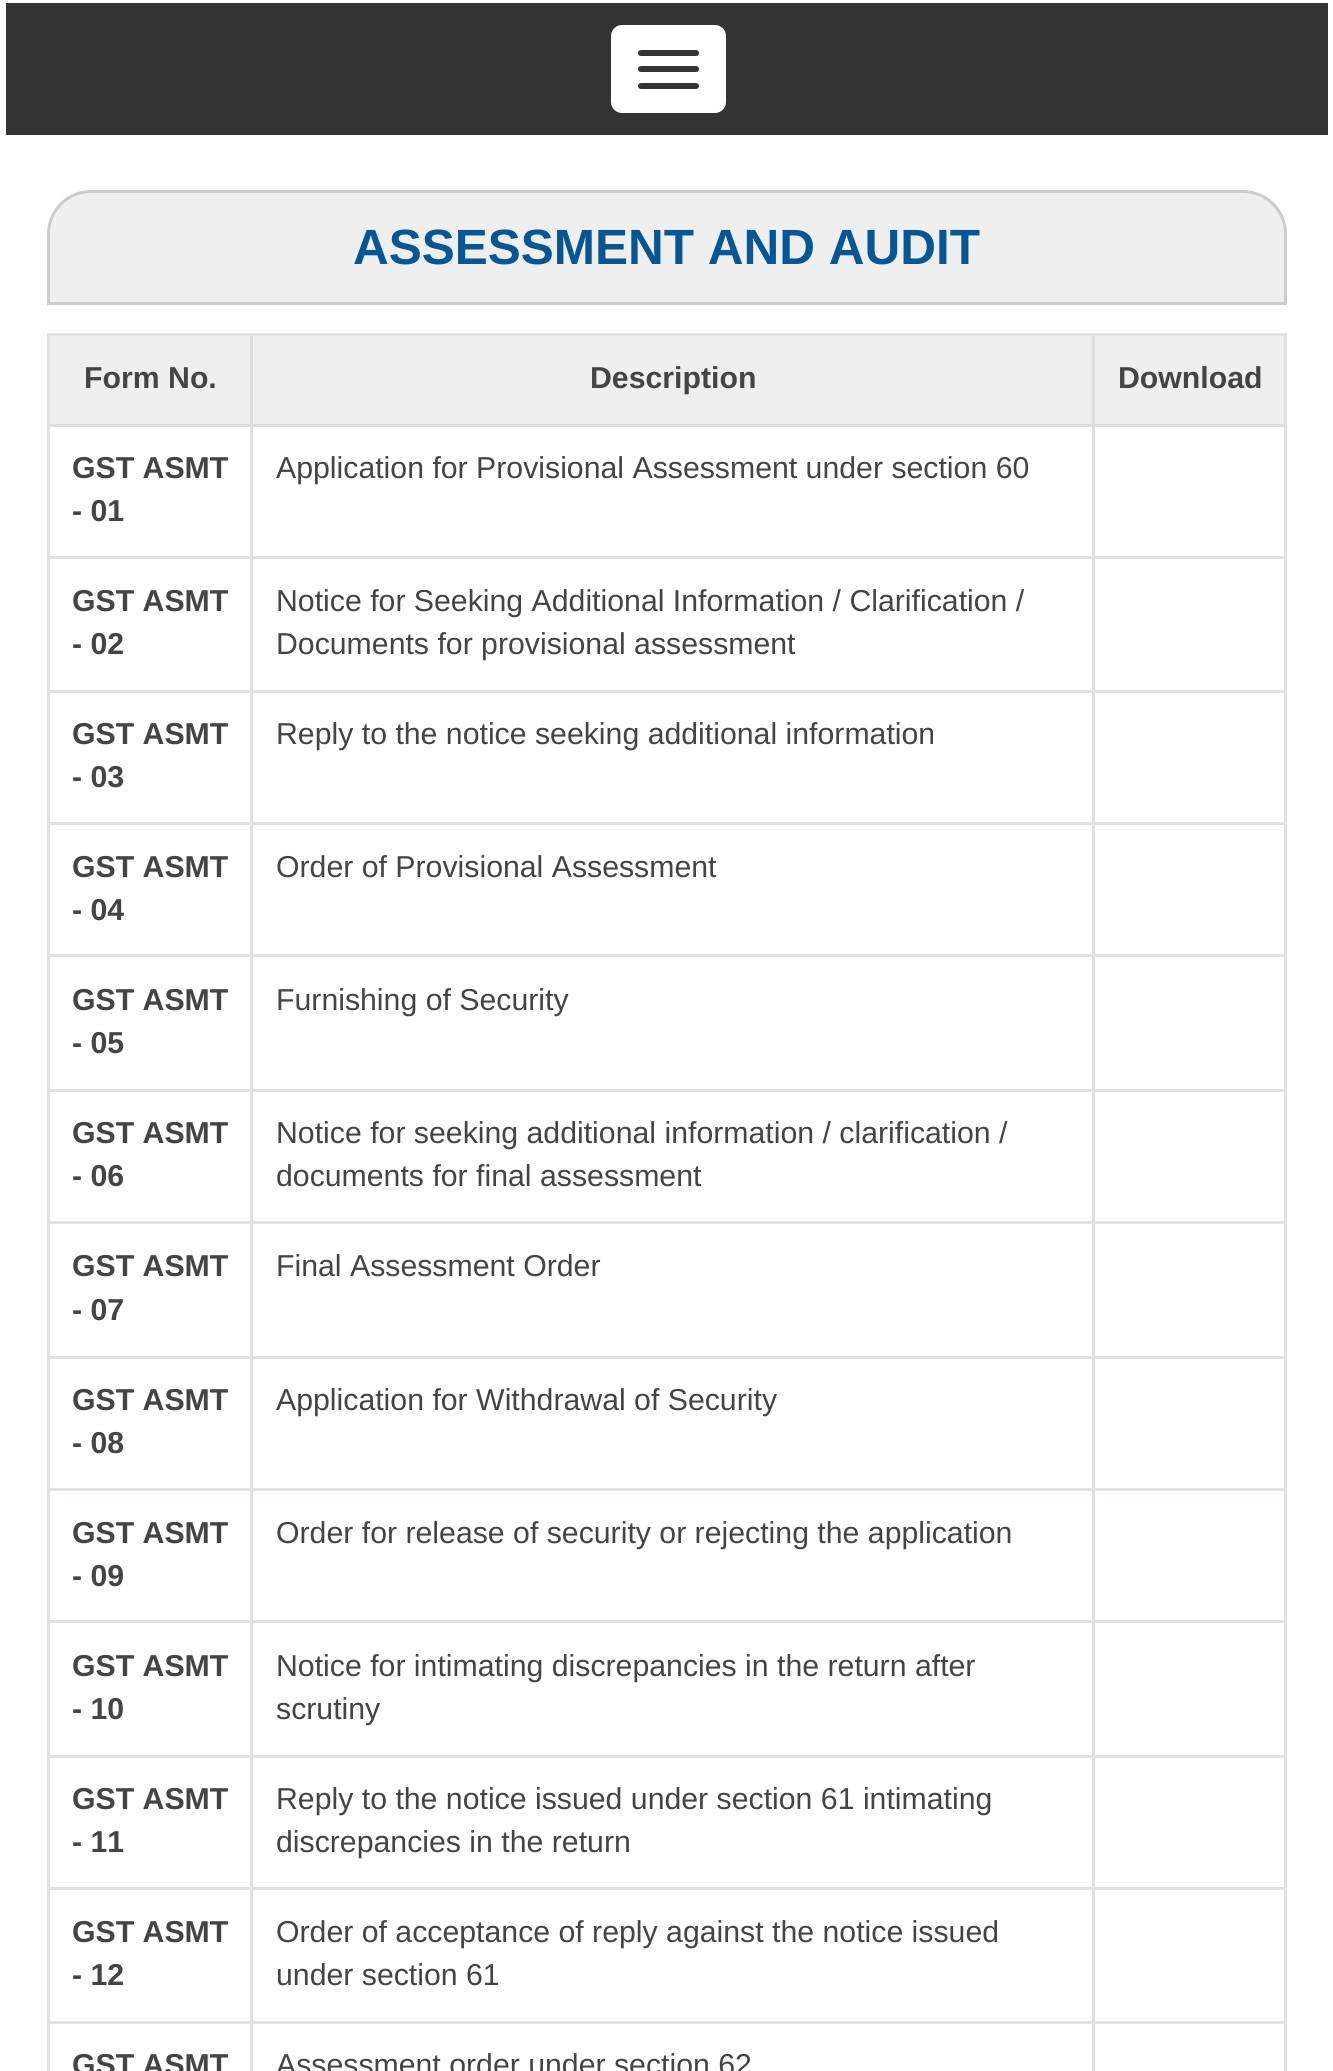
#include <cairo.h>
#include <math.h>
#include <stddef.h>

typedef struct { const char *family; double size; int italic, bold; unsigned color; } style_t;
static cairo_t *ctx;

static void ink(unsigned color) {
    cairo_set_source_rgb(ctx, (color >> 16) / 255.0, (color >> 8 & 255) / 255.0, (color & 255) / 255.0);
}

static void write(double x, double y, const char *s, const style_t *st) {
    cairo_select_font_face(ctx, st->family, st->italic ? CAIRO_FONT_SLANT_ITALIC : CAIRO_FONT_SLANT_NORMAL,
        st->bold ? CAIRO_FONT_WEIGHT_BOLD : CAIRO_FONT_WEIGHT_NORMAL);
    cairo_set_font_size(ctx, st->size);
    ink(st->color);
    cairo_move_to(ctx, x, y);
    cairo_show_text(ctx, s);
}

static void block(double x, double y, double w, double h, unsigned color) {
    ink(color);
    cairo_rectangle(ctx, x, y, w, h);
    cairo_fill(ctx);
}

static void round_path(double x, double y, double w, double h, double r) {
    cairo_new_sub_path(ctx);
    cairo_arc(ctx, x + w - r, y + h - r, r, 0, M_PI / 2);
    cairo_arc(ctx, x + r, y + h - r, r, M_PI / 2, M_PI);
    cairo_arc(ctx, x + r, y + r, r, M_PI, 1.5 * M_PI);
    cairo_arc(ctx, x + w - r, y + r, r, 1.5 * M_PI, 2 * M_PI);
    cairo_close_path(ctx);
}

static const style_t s1 = {"Liberation Sans", 49.5, 0, 1, 0x065695};
static const style_t s2 = {"Liberation Sans", 30.25, 0, 1, 0x444444};
static const style_t s3 = {"Liberation Sans", 30.25, 0, 0, 0x444444};

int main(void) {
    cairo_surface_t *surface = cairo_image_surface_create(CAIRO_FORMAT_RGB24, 1333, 2071);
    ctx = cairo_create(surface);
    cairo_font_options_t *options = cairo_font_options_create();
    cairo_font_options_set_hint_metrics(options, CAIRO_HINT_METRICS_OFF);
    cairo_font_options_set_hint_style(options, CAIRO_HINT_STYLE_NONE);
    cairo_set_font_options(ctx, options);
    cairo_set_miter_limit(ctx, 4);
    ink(0xffffff);
    cairo_paint(ctx);
    block(6, 3, 1322, 132, 0x333333);
    ink(0xffffff);
    round_path(611, 25, 115, 88, 11);
    cairo_fill(ctx);
    ink(0x333333);
    round_path(638, 50, 61, 6, 3);
    cairo_fill(ctx);
    round_path(638, 66, 61, 6, 3);
    cairo_fill(ctx);
    round_path(638, 83, 61, 6, 3);
    cairo_fill(ctx);
    ink(0xefefef);
    cairo_new_path(ctx);
    cairo_move_to(ctx, 91, 191.5);
    cairo_line_to(ctx, 1243, 191.5);
    cairo_curve_to(ctx, 1266.5, 191.5, 1285.5, 210.5, 1285.5, 234);
    cairo_line_to(ctx, 1285.5, 303.5);
    cairo_line_to(ctx, 48.5, 303.5);
    cairo_line_to(ctx, 48.5, 234);
    cairo_curve_to(ctx, 48.5, 210.5, 67.5, 191.5, 91, 191.5);
    cairo_close_path(ctx);
    cairo_fill_preserve(ctx);
    ink(0xcccccc);
    cairo_set_line_width(ctx, 3);
    cairo_stroke(ctx);
    write(353, 264, "ASSESSMENT AND AUDIT", &s1);
    block(47, 333, 1240, 3, 0xdee2e6);
    block(1284, 333, 3, 1738, 0xdee2e6);
    block(47, 333, 3, 1738, 0xdee2e6);
    block(50, 336, 200, 88, 0xefefef);
    block(1092, 556, 192, 3, 0xdee2e6);
    block(1092, 690, 192, 3, 0xdee2e6);
    block(1092, 822, 192, 3, 0xdee2e6);
    block(1092, 954, 192, 3, 0xdee2e6);
    block(1092, 1089, 192, 3, 0xdee2e6);
    block(1092, 1221, 192, 3, 0xdee2e6);
    block(1092, 1356, 192, 3, 0xdee2e6);
    block(1092, 1488, 192, 3, 0xdee2e6);
    block(1092, 1620, 192, 3, 0xdee2e6);
    block(1092, 1755, 192, 3, 0xdee2e6);
    block(1092, 1887, 192, 3, 0xdee2e6);
    block(1092, 2021, 192, 3, 0xdee2e6);
    block(1092, 2021, 3, 50, 0xdee2e6);
    block(250, 2021, 845, 3, 0xdee2e6);
    block(1092, 1887, 3, 137, 0xdee2e6);
    block(250, 1887, 845, 3, 0xdee2e6);
    block(1092, 1755, 3, 134, 0xdee2e6);
    block(250, 1755, 845, 3, 0xdee2e6);
    block(1092, 1620, 3, 137, 0xdee2e6);
    block(250, 1620, 845, 3, 0xdee2e6);
    block(1092, 1488, 3, 135, 0xdee2e6);
    block(250, 1488, 845, 3, 0xdee2e6);
    block(1092, 1356, 3, 135, 0xdee2e6);
    block(250, 1356, 845, 3, 0xdee2e6);
    block(1092, 1221, 3, 138, 0xdee2e6);
    block(250, 1221, 845, 3, 0xdee2e6);
    block(1092, 1089, 3, 135, 0xdee2e6);
    block(250, 1089, 845, 3, 0xdee2e6);
    block(1092, 954, 3, 138, 0xdee2e6);
    block(250, 954, 845, 3, 0xdee2e6);
    block(1092, 822, 3, 135, 0xdee2e6);
    block(250, 822, 845, 3, 0xdee2e6);
    block(1092, 690, 3, 135, 0xdee2e6);
    block(250, 690, 845, 3, 0xdee2e6);
    block(1092, 556, 3, 137, 0xdee2e6);
    block(250, 556, 845, 3, 0xdee2e6);
    block(1092, 424, 3, 134, 0xdee2e6);
    block(1092, 424, 192, 3, 0xdddddd);
    block(1092, 336, 3, 90, 0xdddddd);
    block(250, 2021, 3, 50, 0xdee2e6);
    block(50, 2021, 203, 3, 0xdee2e6);
    block(250, 1887, 3, 137, 0xdee2e6);
    block(50, 1887, 203, 3, 0xdee2e6);
    block(250, 1755, 3, 134, 0xdee2e6);
    block(50, 1755, 203, 3, 0xdee2e6);
    block(250, 1620, 3, 137, 0xdee2e6);
    block(50, 1620, 203, 3, 0xdee2e6);
    block(250, 1488, 3, 135, 0xdee2e6);
    block(50, 1488, 203, 3, 0xdee2e6);
    block(250, 1356, 3, 135, 0xdee2e6);
    block(50, 1356, 203, 3, 0xdee2e6);
    block(250, 1221, 3, 138, 0xdee2e6);
    block(50, 1221, 203, 3, 0xdee2e6);
    block(250, 1089, 3, 135, 0xdee2e6);
    block(50, 1089, 203, 3, 0xdee2e6);
    block(250, 954, 3, 138, 0xdee2e6);
    block(50, 954, 203, 3, 0xdee2e6);
    block(250, 822, 3, 135, 0xdee2e6);
    block(50, 822, 203, 3, 0xdee2e6);
    block(250, 690, 3, 135, 0xdee2e6);
    block(50, 690, 203, 3, 0xdee2e6);
    block(250, 556, 3, 137, 0xdee2e6);
    block(50, 556, 203, 3, 0xdee2e6);
    block(250, 424, 3, 134, 0xdee2e6);
    block(250, 424, 845, 3, 0xdddddd);
    block(250, 336, 3, 90, 0xdddddd);
    block(50, 424, 203, 3, 0xdddddd);
    write(84, 388, "Form No.", &s2);
    block(253, 336, 839, 88, 0xefefef);
    write(590, 388, "Description", &s2);
    block(1095, 336, 189, 88, 0xefefef);
    write(1118, 388, "Download", &s2);
    write(72, 478, "GST ASMT", &s2);
    write(72, 521, "- 01", &s2);
    write(276, 478, "Application for Provisional Assessment under section 60", &s3);
    write(72, 611, "GST ASMT", &s2);
    write(72, 654, "- 02", &s2);
    write(276, 611, "Notice for Seeking Additional Information / Clarification /", &s3);
    write(276, 654, "Documents for provisional assessment", &s3);
    write(72, 744, "GST ASMT", &s2);
    write(72, 787, "- 03", &s2);
    write(276, 744, "Reply to the notice seeking additional information", &s3);
    write(72, 877, "GST ASMT", &s2);
    write(72, 920, "- 04", &s2);
    write(276, 877, "Order of Provisional Assessment", &s3);
    write(72, 1010, "GST ASMT", &s2);
    write(72, 1053, "- 05", &s2);
    write(276, 1010, "Furnishing of Security", &s3);
    write(72, 1143, "GST ASMT", &s2);
    write(72, 1186, "- 06", &s2);
    write(276, 1143, "Notice for seeking additional information / clarification /", &s3);
    write(276, 1186, "documents for final assessment", &s3);
    write(72, 1276, "GST ASMT", &s2);
    write(72, 1320, "- 07", &s2);
    write(276, 1276, "Final Assessment Order", &s3);
    write(72, 1410, "GST ASMT", &s2);
    write(72, 1453, "- 08", &s2);
    write(276, 1410, "Application for Withdrawal of Security", &s3);
    write(72, 1543, "GST ASMT", &s2);
    write(72, 1586, "- 09", &s2);
    write(276, 1543, "Order for release of security or rejecting the application", &s3);
    write(72, 1676, "GST ASMT", &s2);
    write(72, 1719, "- 10", &s2);
    write(276, 1676, "Notice for intimating discrepancies in the return after", &s3);
    write(276, 1719, "scrutiny", &s3);
    write(72, 1809, "GST ASMT", &s2);
    write(72, 1852, "- 11", &s2);
    write(276, 1809, "Reply to the notice issued under section 61 intimating", &s3);
    write(276, 1852, "discrepancies in the return", &s3);
    write(72, 1942, "GST ASMT", &s2);
    write(72, 1985, "- 12", &s2);
    write(276, 1942, "Order of acceptance of reply against the notice issued", &s3);
    write(276, 1985, "under section 61", &s3);
    write(72, 2075, "GST ASMT", &s2);
    write(276, 2075, "Assessment order under section 62", &s3);
    cairo_surface_write_to_png(surface, "screenshot.png");
    cairo_font_options_destroy(options);
    cairo_destroy(ctx);
    cairo_surface_destroy(surface);
    return 0;
}
